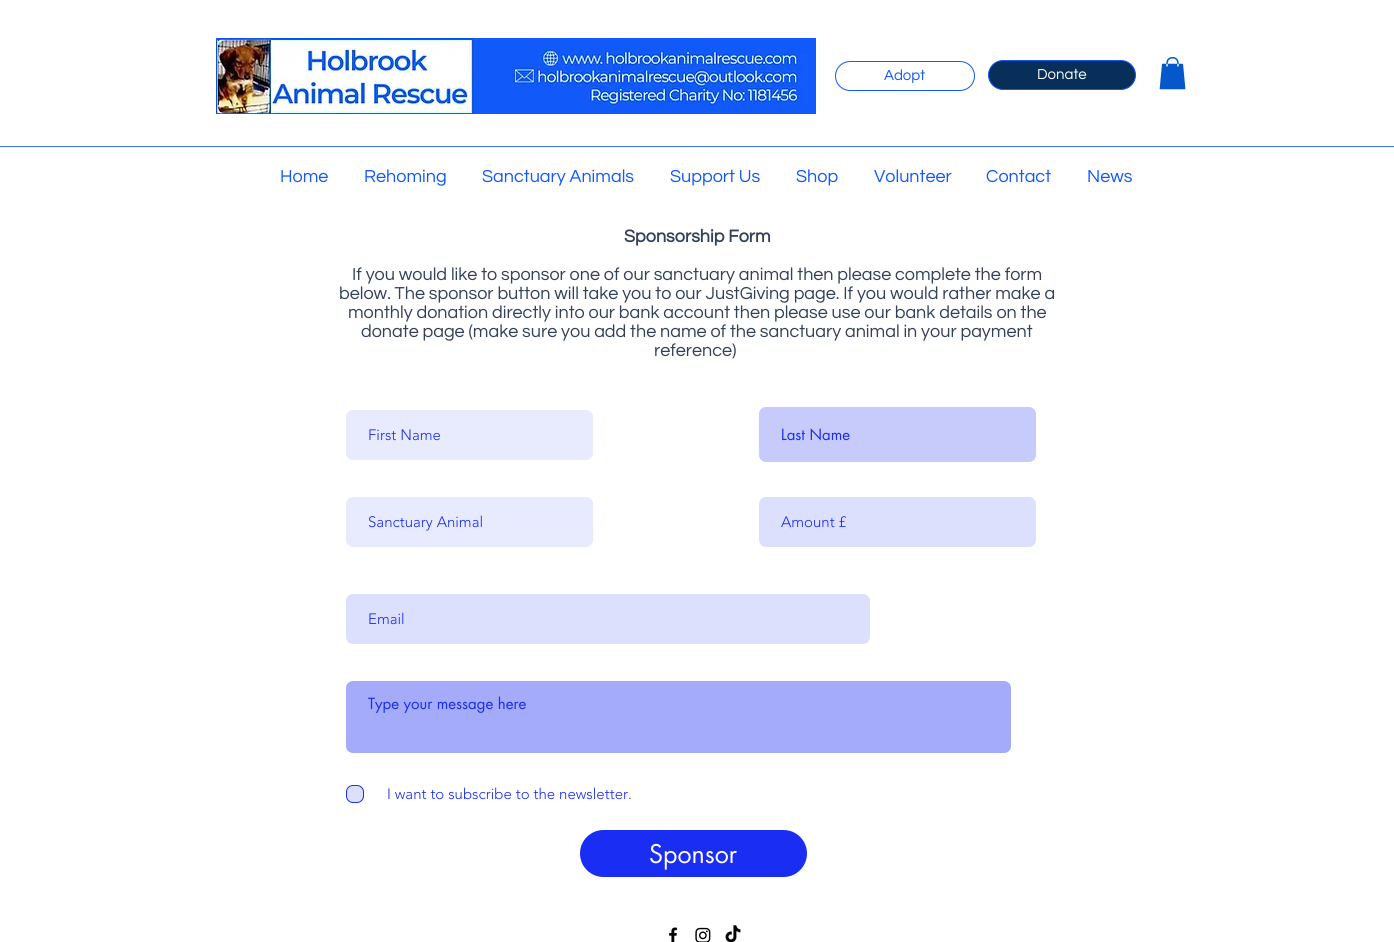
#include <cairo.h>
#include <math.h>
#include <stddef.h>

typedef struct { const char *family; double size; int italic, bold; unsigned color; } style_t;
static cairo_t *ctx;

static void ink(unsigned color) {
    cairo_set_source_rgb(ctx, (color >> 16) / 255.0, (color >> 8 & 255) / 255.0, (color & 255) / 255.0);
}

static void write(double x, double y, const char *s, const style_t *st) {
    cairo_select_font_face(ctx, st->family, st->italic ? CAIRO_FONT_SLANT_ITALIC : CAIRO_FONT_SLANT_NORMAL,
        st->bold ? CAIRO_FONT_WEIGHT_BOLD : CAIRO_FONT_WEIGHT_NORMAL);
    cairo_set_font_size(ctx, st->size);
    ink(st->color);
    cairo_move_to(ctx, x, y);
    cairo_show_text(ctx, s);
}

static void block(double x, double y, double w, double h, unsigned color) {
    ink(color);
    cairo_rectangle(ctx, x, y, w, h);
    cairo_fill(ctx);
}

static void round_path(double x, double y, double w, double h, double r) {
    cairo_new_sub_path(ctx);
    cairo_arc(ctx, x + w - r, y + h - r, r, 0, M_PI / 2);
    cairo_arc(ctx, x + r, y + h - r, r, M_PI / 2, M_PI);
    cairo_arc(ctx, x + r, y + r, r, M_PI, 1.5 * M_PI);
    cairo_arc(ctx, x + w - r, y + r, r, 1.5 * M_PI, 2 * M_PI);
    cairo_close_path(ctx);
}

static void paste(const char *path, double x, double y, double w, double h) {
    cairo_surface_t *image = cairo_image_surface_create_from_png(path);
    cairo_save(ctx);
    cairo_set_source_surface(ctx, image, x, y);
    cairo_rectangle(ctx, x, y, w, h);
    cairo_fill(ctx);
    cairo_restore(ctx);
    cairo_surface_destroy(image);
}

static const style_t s1 = {"Questrial", 15, 0, 0, 0x1159f8};
static const style_t s2 = {"Questrial", 15, 0, 0, 0xffffff};
static const style_t s3 = {"Questrial", 18, 0, 0, 0x1159f8};
static const style_t s4 = {"Questrial", 18, 0, 1, 0x324158};
static const style_t s5 = {"Questrial", 18, 0, 0, 0x324158};
static const style_t s6 = {"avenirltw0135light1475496 Light", 15, 0, 0, 0x1a2df3};
static const style_t s7 = {"futura", 15, 0, 0, 0x1a2df3};
static const style_t s8 = {"futura", 25, 0, 0, 0xffffff};

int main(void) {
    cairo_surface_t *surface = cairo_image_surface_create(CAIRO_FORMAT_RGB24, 1394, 942);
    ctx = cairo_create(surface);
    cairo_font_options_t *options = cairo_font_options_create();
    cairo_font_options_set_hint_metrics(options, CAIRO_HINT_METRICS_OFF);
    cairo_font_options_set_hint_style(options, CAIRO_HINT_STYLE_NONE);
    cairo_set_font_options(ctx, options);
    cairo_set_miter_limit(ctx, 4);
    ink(0xffffff);
    cairo_paint(ctx);
    paste("pic1.png", 216, 38, 600, 76);
    round_path(835.5, 61.5, 139, 29, 14.5);
    ink(0x1159f8);
    cairo_set_line_width(ctx, 1);
    cairo_stroke(ctx);
    write(884, 80, "Adopt", &s1);
    ink(0x082f5a);
    round_path(988.5, 60.5, 147, 29, 14.5);
    cairo_fill_preserve(ctx);
    ink(0x1159f8);
    cairo_stroke(ctx);
    write(1037, 79, "Donate", &s2);
    paste("pic2.png", 1159, 57, 27, 33);
    block(0, 146, 1394, 1, 0x3572f9);
    write(280, 182, "Home", &s3);
    write(364, 182, "Rehoming", &s3);
    write(482, 182, "Sanctuary Animals", &s3);
    write(670, 182, "Support Us", &s3);
    write(796, 182, "Shop", &s3);
    write(874, 182, "Volunteer", &s3);
    write(986, 182, "Contact", &s3);
    write(1087, 182, "News", &s3);
    write(624, 242, "Sponsorship Form", &s4);
    write(352, 280, "If you would like to sponsor one of our sanctuary animal then please complete the form", &s5);
    write(339, 299, "below. The sponsor button will take you to our JustGiving page. If you would rather make a", &s5);
    write(348, 318, "monthly donation directly into our bank account then please use our bank details on the", &s5);
    write(361, 337, "donate page (make sure you add the name of the sanctuary animal in your payment", &s5);
    write(654, 356, "reference)", &s5);
    ink(0xe8eafe);
    round_path(346, 410, 247, 50, 7);
    cairo_fill(ctx);
    write(368, 440, "First Name", &s6);
    ink(0xc6cbfc);
    round_path(759, 407, 277, 55, 7);
    cairo_fill(ctx);
    write(781, 440, "Last Name", &s7);
    ink(0xe8eafe);
    round_path(346, 497, 247, 50, 7);
    cairo_fill(ctx);
    write(368, 527, "Sanctuary Animal", &s6);
    ink(0xdde0fd);
    round_path(759, 497, 277, 50, 7);
    cairo_fill(ctx);
    write(781, 527, "Amount £", &s6);
    ink(0xdde0fd);
    round_path(346, 594, 524, 50, 7);
    cairo_fill(ctx);
    write(368, 624, "Email", &s6);
    ink(0xa3abfa);
    round_path(346, 681, 665, 72, 7);
    cairo_fill(ctx);
    write(368, 709, "Type your message here", &s7);
    ink(0xdde0fd);
    round_path(346.5, 785.5, 17, 17, 6.5);
    cairo_fill_preserve(ctx);
    ink(0x1a2df3);
    cairo_stroke(ctx);
    write(387, 799, "I want to subscribe to the newsletter.", &s6);
    round_path(580, 830, 227, 47, 23.5);
    cairo_fill(ctx);
    write(649, 863, "Sponsor", &s8);
    paste("pic3.png", 669, 927, 9, 15);
    paste("pic4.png", 695, 927, 16, 15);
    paste("pic5.png", 725, 925, 16, 17);
    cairo_surface_write_to_png(surface, "screenshot.png");
    cairo_font_options_destroy(options);
    cairo_destroy(ctx);
    cairo_surface_destroy(surface);
    return 0;
}
